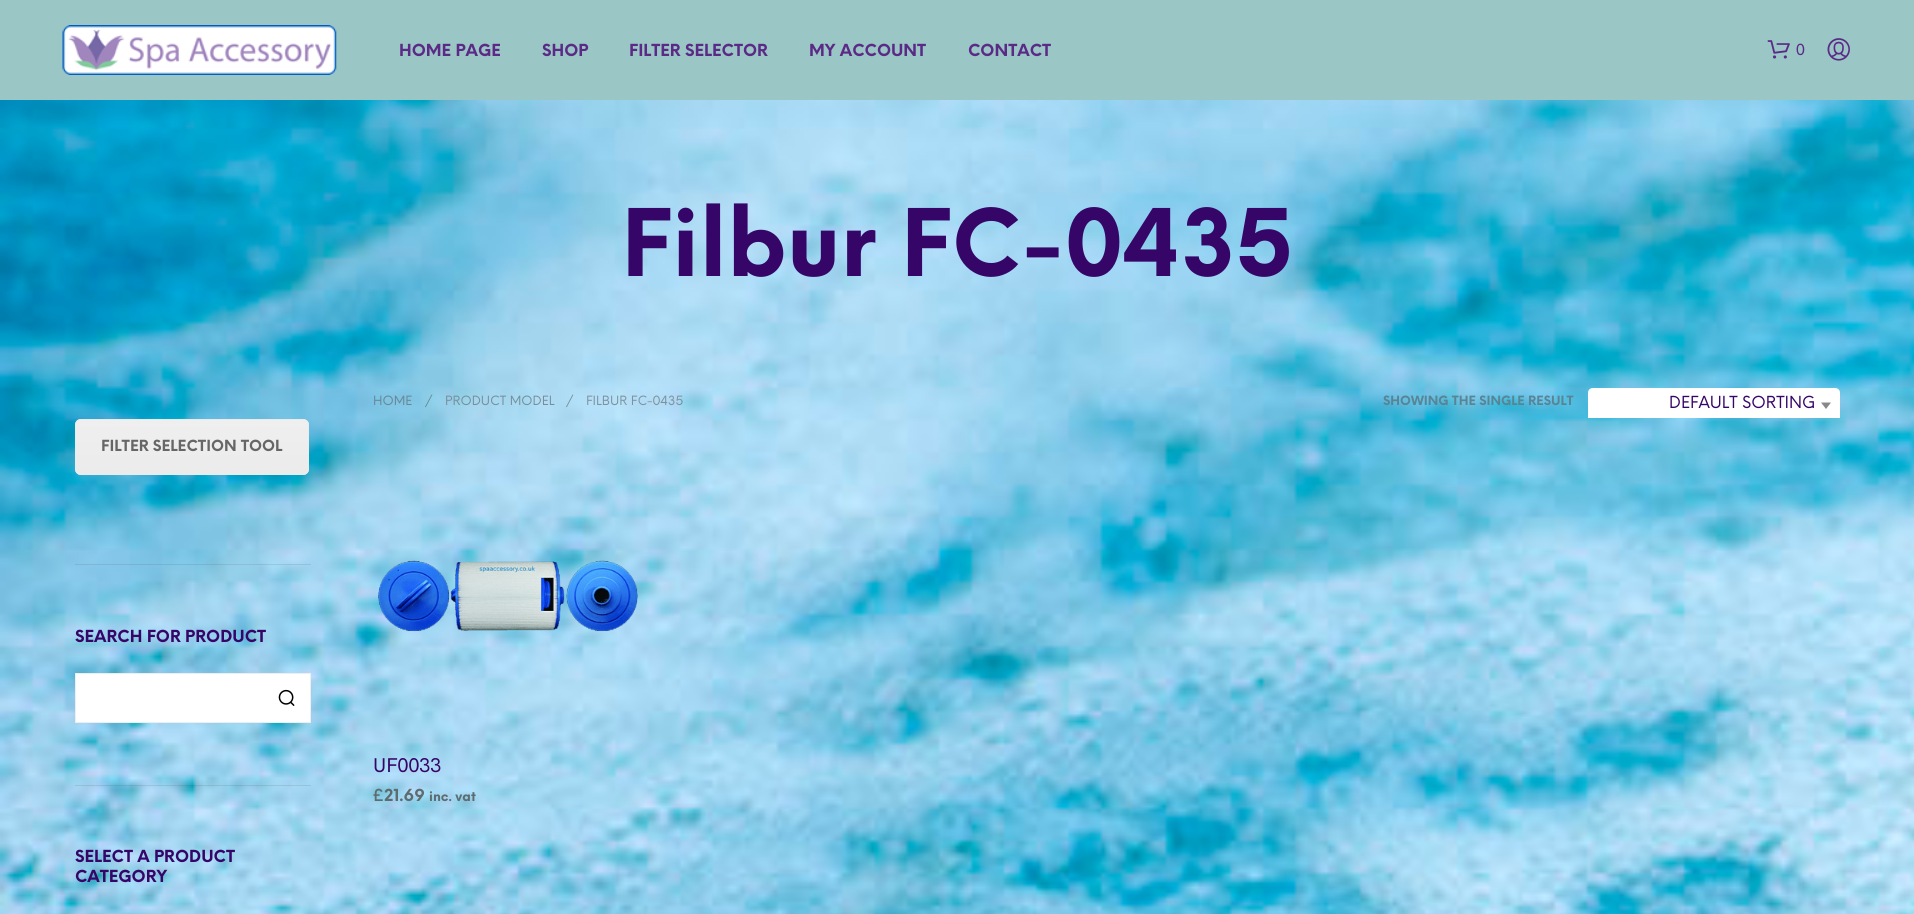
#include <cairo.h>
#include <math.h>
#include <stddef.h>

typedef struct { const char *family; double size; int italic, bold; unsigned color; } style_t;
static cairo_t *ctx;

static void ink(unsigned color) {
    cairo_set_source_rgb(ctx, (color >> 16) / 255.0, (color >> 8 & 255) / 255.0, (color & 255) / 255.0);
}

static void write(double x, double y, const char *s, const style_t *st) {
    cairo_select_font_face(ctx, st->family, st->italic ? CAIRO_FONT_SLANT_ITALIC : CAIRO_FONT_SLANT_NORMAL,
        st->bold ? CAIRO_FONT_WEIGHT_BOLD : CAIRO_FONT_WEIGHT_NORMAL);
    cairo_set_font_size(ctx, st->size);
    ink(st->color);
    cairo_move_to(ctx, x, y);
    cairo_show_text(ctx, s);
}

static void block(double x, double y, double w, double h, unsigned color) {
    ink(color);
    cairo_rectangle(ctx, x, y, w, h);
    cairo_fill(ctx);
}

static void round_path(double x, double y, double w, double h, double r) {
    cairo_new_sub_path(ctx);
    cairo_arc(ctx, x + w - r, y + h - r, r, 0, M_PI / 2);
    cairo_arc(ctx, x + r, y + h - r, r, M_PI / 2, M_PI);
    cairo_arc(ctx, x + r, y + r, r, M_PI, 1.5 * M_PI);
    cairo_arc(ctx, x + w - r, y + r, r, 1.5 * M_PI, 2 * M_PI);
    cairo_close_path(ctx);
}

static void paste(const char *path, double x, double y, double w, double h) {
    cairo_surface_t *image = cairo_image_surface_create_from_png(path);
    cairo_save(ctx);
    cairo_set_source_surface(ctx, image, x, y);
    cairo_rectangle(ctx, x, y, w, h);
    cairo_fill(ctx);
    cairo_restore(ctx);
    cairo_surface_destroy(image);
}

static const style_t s1 = {"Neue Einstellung", 16.25, 0, 1, 0x5b2a86};
static const style_t s2 = {"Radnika", 16.25, 0, 0, 0x5b2a86};
static const style_t s3 = {"Neue Einstellung", 90.75, 0, 1, 0x360568};
static const style_t s4 = {"Neue Einstellung", 15, 0, 1, 0x666666};
static const style_t s5 = {"Neue Einstellung", 16.25, 0, 1, 0x360568};
static const style_t s6 = {"Neue Einstellung", 12.5, 0, 0, 0x688795};
static const style_t s7 = {"Neue Einstellung", 12.5, 0, 0, 0x788f9a};
static const style_t s8 = {"Neue Einstellung", 12.5, 0, 0, 0x7e929e};
static const style_t s9 = {"Neue Einstellung", 12.5, 0, 1, 0x588494};
static const style_t s10 = {"Neue Einstellung", 16.25, 0, 0, 0x360568};
static const style_t s11 = {"Radnika", 20, 0, 0, 0x360568};
static const style_t s12 = {"Neue Einstellung", 16.25, 0, 1, 0x5e6c70};
static const style_t s13 = {"Neue Einstellung", 13, 0, 1, 0x5e6c70};

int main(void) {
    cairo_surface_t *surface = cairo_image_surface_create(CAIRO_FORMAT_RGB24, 1914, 914);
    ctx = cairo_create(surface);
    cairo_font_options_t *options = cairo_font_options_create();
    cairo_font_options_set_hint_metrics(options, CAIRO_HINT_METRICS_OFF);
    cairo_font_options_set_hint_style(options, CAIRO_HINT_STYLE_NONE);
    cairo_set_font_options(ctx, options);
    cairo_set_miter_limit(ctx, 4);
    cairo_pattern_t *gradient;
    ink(0xffffff);
    cairo_paint(ctx);
    paste("pic1.png", 0, 100, 1914, 814);
    block(0, 0, 1914, 100, 0x9ac6c5);
    paste("pic2.png", 62, 25, 275, 50);
    write(399, 56, "HOME PAGE", &s1);
    write(542, 56, "SHOP", &s1);
    write(629, 56, "FILTER SELECTOR", &s1);
    write(809, 56, "MY ACCOUNT", &s1);
    write(968, 56, "CONTACT", &s1);
    paste("pic3.png", 1767, 40, 23, 19);
    write(1796, 55, "0", &s2);
    paste("pic4.png", 1827, 38, 23, 23);
    write(621, 276, "Filbur FC-0435", &s3);
    cairo_set_source_rgba(ctx, 0.329, 0.329, 0.329, 0.15);
    cairo_rectangle(ctx, 75, 564, 236, 1);
    cairo_fill(ctx);
    ink(0xebebeb);
    round_path(75, 419, 234, 56, 6);
    cairo_fill(ctx);
    cairo_save(ctx);
    round_path(75, 419, 234, 56, 6);
    cairo_clip(ctx);
    gradient = cairo_pattern_create_linear(192, 420, 192, 474);
    cairo_pattern_add_color_stop_rgba(gradient, 0, 1, 1, 1, 0.2);
    cairo_pattern_add_color_stop_rgba(gradient, 1, 1, 1, 1, 0.01);
    cairo_set_source(ctx, gradient);
    cairo_pattern_destroy(gradient);
    cairo_rectangle(ctx, 75, 420, 234, 51);
    cairo_fill(ctx);
    cairo_restore(ctx);
    round_path(75.5, 419.5, 233, 55, 5.5);
    cairo_set_line_width(ctx, 1);
    cairo_stroke(ctx);
    write(101, 451, "FILTER SELECTION TOOL", &s4);
    cairo_set_source_rgba(ctx, 0.329, 0.329, 0.329, 0.15);
    cairo_rectangle(ctx, 75, 785, 236, 1);
    cairo_fill(ctx);
    write(75, 642, "SEARCH FOR PRODUCT", &s5);
    ink(0xffffff);
    cairo_rectangle(ctx, 75.5, 673.5, 235, 49);
    cairo_fill_preserve(ctx);
    ink(0xeeeeee);
    cairo_stroke(ctx);
    paste("pic5.png", 278, 689, 17, 17);
    write(75, 862, "SELECT A PRODUCT", &s5);
    write(75, 882, "CATEGORY", &s5);
    write(373, 405, "HOME", &s6);
    write(425, 405, "/", &s6);
    write(445, 405, "PRODUCT MODEL", &s7);
    write(566, 405, "/", &s7);
    write(586, 405, "FILBUR FC-0435", &s8);
    write(1383, 405, "SHOWING THE SINGLE RESULT", &s9);
    ink(0xffffff);
    cairo_new_path(ctx);
    cairo_move_to(ctx, 1593, 388);
    cairo_line_to(ctx, 1835, 388);
    cairo_curve_to(ctx, 1838, 388, 1840, 390, 1840, 393);
    cairo_line_to(ctx, 1840, 418);
    cairo_line_to(ctx, 1588, 418);
    cairo_line_to(ctx, 1588, 393);
    cairo_curve_to(ctx, 1588, 390, 1590, 388, 1593, 388);
    cairo_close_path(ctx);
    cairo_fill(ctx);
    write(1669, 408, "DEFAULT SORTING", &s10);
    ink(0x888888);
    cairo_new_path(ctx);
    cairo_move_to(ctx, 1821, 402.5);
    cairo_line_to(ctx, 1831, 402.5);
    cairo_line_to(ctx, 1826, 409);
    cairo_close_path(ctx);
    cairo_fill(ctx);
    paste("pic6.png", 378, 560, 260, 72);
    write(373, 772, "UF0033", &s11);
    write(373, 801, "£", &s12);
    write(384, 801, "21.69", &s12);
    write(429, 801, "inc. vat", &s13);
    cairo_surface_write_to_png(surface, "screenshot.png");
    cairo_font_options_destroy(options);
    cairo_destroy(ctx);
    cairo_surface_destroy(surface);
    return 0;
}
